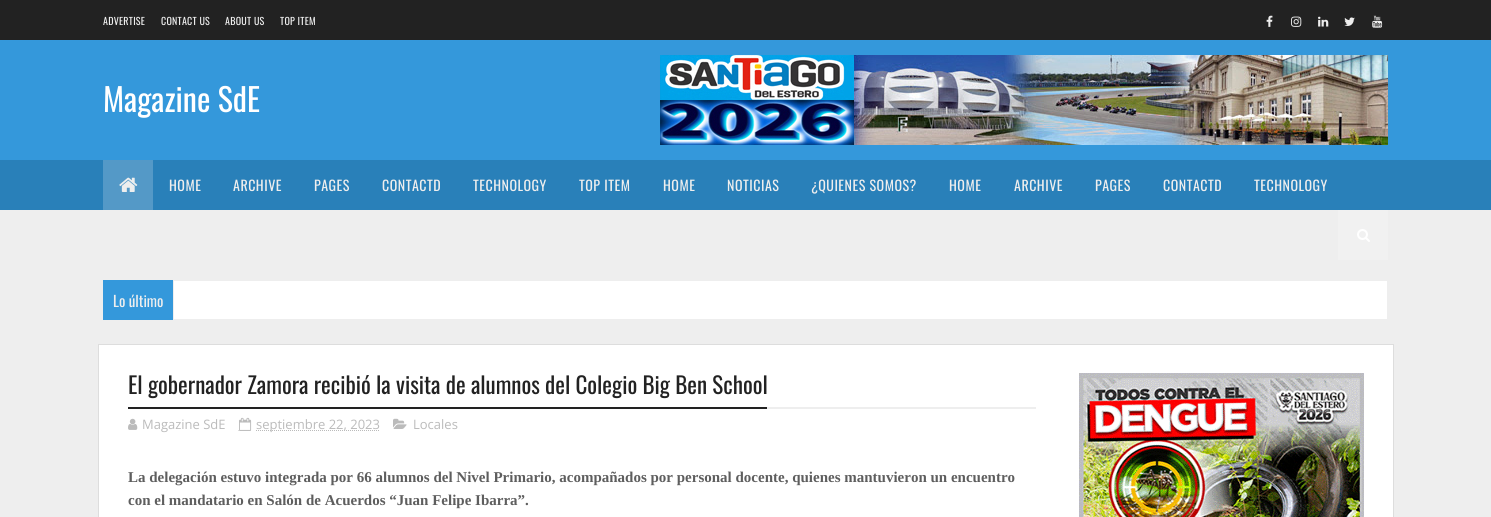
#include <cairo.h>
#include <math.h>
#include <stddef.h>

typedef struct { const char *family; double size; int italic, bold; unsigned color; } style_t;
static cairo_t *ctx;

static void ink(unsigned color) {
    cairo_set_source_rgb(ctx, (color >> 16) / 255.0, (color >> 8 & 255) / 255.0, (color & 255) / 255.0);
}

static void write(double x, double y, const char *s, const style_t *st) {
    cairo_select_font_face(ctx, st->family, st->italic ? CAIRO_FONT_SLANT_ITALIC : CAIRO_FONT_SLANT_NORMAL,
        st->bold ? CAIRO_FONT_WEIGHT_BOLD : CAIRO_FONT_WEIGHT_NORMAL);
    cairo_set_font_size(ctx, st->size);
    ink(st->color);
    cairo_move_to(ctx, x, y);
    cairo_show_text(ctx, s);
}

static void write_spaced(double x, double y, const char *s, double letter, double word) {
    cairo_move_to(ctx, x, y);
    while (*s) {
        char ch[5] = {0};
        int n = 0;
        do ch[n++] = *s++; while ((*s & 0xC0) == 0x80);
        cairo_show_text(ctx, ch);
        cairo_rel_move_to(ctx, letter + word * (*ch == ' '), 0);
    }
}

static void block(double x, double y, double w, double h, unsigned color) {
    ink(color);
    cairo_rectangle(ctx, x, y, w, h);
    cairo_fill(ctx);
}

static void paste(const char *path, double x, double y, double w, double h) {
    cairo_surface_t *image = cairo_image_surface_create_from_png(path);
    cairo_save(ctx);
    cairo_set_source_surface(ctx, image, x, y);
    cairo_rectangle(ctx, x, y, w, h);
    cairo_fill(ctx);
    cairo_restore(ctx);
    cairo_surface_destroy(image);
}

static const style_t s1 = {"Oswald", 32, 0, 0, 0xffffff};
static const style_t s2 = {"Oswald", 15, 0, 0, 0xeeeeee};
static const style_t s3 = {"Oswald", 23, 0, 0, 0x222222};
static const style_t s4 = {"Open Sans", 13, 0, 0, 0xbbbbbb};
static const style_t s5 = {"Liberation Serif", 15, 0, 1, 0x5e5e5e};

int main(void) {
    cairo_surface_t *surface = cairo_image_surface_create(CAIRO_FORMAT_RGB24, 1491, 517);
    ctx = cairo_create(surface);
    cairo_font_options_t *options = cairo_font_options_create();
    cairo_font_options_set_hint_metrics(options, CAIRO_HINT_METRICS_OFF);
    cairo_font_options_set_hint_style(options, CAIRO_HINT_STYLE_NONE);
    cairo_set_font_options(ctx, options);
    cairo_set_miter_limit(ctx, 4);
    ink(0xeeeeee);
    cairo_paint(ctx);
    block(0, 0, 1491, 40, 0x222222);
    cairo_select_font_face(ctx, "Oswald", CAIRO_FONT_SLANT_NORMAL, CAIRO_FONT_WEIGHT_NORMAL);
    cairo_set_font_size(ctx, 10);
    ink(0xeeeeee);
    write_spaced(103, 25, "ADVERTISE", 0.25, 0);
    write_spaced(161, 25, "CONTACT US", 0.25, 0);
    write_spaced(225, 25, "ABOUT US", 0.25, 0);
    write_spaced(280, 25, "TOP ITEM", 0.25, 0);
    paste("pic1.png", 1266, 15, 7, 12);
    paste("pic2.png", 1291, 16, 11, 11);
    paste("pic3.png", 1318, 16, 11, 11);
    paste("pic4.png", 1344, 17, 11, 9);
    paste("pic5.png", 1372, 15, 11, 13);
    block(0, 40, 1491, 120, 0x3498db);
    write(103, 112, "Magazine SdE", &s1);
    paste("pic6.png", 660, 55, 728, 90);
    block(0, 160, 1491, 50, 0x2980b9);
    block(103, 160, 50, 50, 0x5499c7);
    paste("pic7.png", 119, 177, 19, 15);
    cairo_set_font_size(ctx, 14);
    ink(0xeeeeee);
    write_spaced(169, 191, "HOME", 0.5, 0);
    write_spaced(233, 191, "ARCHIVE", 0.5, 0);
    write_spaced(314, 191, "PAGES", 0.5, 0);
    write_spaced(382, 191, "CONTACTD", 0.5, 0);
    write_spaced(473, 191, "TECHNOLOGY", 0.5, 0);
    write_spaced(579, 191, "TOP ITEM", 0.5, 0);
    write_spaced(663, 191, "HOME", 0.5, 0);
    write_spaced(727, 191, "NOTICIAS", 0.5, 0);
    write_spaced(811, 191, "¿QUIENES SOMOS?", 0.5, 0);
    write_spaced(949, 191, "HOME", 0.5, 0);
    write_spaced(1014, 191, "ARCHIVE", 0.5, 0);
    write_spaced(1095, 191, "PAGES", 0.5, 0);
    write_spaced(1163, 191, "CONTACTD", 0.5, 0);
    write_spaced(1254, 191, "TECHNOLOGY", 0.5, 0);
    block(1338, 210, 50, 50, 0xf1f1f1);
    paste("pic8.png", 1357, 229, 13, 13);
    block(174, 281, 1213, 38, 0xffffff);
    block(103, 280, 70, 40, 0x3498db);
    write(113, 307, "Lo último", &s2);
    cairo_rectangle(ctx, 98.5, 344.5, 1295, 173);
    ink(0xdddddd);
    cairo_set_line_width(ctx, 1);
    cairo_stroke(ctx);
    block(99, 345, 1294, 172, 0xffffff);
    block(767, 407, 269, 2, 0xeeeeee);
    block(128, 407, 639, 2, 0x222222);
    write(128, 394, "El gobernador Zamora recibió la visita de alumnos del Colegio Big Ben School", &s3);
    paste("pic9.png", 128, 418, 10, 12);
    write(142, 429, "Magazine SdE", &s4);
    cairo_new_path(ctx);
    cairo_move_to(ctx, 238.5, 430.5);
    cairo_line_to(ctx, 251, 430.5);
    cairo_set_dash(ctx, (double[]){1, 1}, 2, 0);
    cairo_stroke(ctx);
    paste("pic10.png", 239, 417, 13, 14);
    cairo_new_path(ctx);
    cairo_move_to(ctx, 256, 430.5);
    cairo_line_to(ctx, 380, 430.5);
    cairo_stroke(ctx);
    write(256, 429, "septiembre 22, 2023", &s4);
    paste("pic11.png", 393, 418, 14, 11);
    write(413, 429, "Locales", &s4);
    write(128, 482, "La delegación estuvo integrada por 66 alumnos del Nivel Primario, acompañados por personal docente, quienes mantuvieron un encuentro", &s5);
    write(128, 505, "con el mandatario en Salón de Acuerdos “Juan Felipe Ibarra”.", &s5);
    paste("pic12.png", 1079, 373, 285, 144);
    cairo_surface_write_to_png(surface, "screenshot.png");
    cairo_font_options_destroy(options);
    cairo_destroy(ctx);
    cairo_surface_destroy(surface);
    return 0;
}
